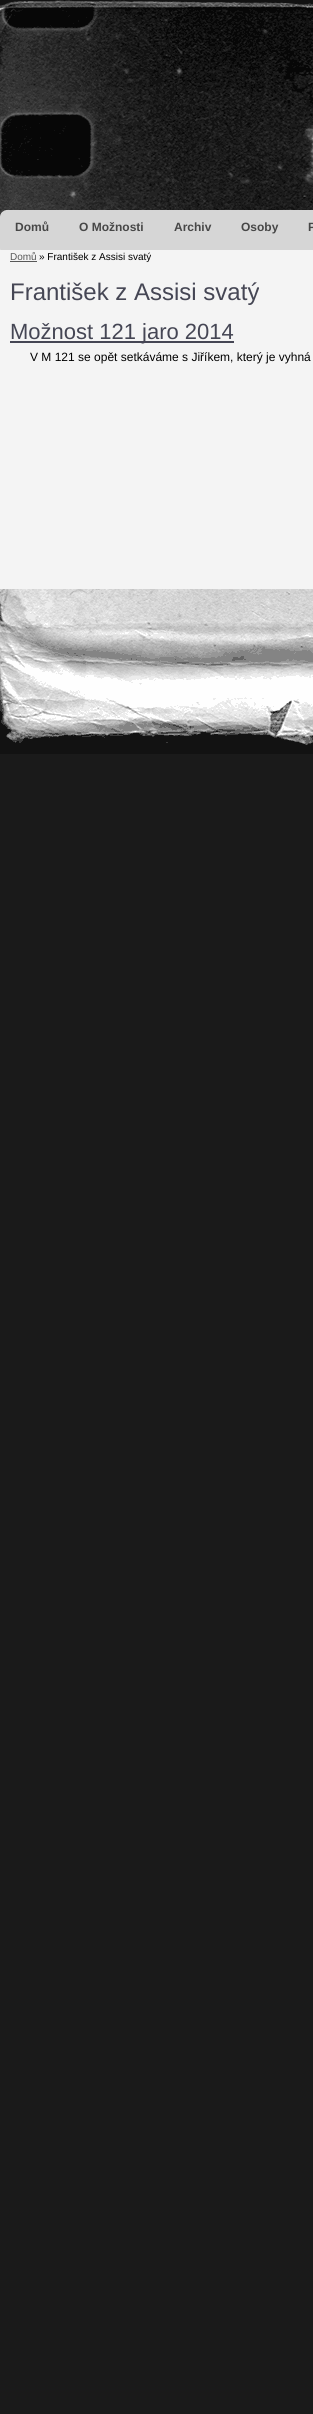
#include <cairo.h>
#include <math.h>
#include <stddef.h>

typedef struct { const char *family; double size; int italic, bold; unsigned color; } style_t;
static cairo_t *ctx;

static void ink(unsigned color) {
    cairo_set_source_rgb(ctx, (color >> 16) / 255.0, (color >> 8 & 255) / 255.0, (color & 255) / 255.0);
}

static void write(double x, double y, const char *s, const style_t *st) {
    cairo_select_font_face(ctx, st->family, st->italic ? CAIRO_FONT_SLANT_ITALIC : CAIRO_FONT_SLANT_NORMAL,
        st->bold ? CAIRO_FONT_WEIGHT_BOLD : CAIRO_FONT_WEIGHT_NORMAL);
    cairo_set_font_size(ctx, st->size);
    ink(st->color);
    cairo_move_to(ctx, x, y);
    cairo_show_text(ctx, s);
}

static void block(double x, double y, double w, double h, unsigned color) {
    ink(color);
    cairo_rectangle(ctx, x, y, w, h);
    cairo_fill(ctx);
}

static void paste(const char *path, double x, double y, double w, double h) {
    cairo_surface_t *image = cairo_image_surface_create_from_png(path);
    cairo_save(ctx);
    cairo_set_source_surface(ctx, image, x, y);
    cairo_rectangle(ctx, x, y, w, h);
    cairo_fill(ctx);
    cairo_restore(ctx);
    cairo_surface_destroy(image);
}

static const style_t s1 = {"Liberation Sans", 12, 0, 1, 0x474747};
static const style_t s2 = {"Liberation Sans", 10, 0, 0, 0x585858};
static const style_t s3 = {"Liberation Sans", 10, 0, 0, 0x000000};
static const style_t s4 = {"Liberation Sans", 24, 0, 0, 0x454654};
static const style_t s5 = {"Liberation Sans", 22, 0, 0, 0x454654};
static const style_t s6 = {"Liberation Sans", 12, 0, 0, 0x000000};

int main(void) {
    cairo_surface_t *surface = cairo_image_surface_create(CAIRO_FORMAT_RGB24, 313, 2414);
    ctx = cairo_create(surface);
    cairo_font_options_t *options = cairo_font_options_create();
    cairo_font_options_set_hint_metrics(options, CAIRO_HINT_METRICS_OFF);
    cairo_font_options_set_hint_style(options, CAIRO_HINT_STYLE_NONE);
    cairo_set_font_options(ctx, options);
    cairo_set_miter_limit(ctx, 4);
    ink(0x1a1a1a);
    cairo_paint(ctx);
    block(0, 248, 313, 341, 0xf4f4f4);
    paste("pic1.png", 0, 0, 313, 217);
    paste("pic2.png", 0, 210, 313, 40);
    write(15, 231, "Domů", &s1);
    write(79, 231, "O Možnosti", &s1);
    write(174, 231, "Archiv", &s1);
    write(241, 231, "Osoby", &s1);
    write(308, 231, "P", &s1);
    write(10, 260, "Domů", &s2);
    block(10, 261, 27, 1, 0x585858);
    write(39, 260, "» František z Assisi svatý", &s3);
    write(10, 300, "František z Assisi svatý", &s4);
    block(10, 341, 224, 2, 0x454654);
    write(10, 339, "Možnost 121 jaro 2014", &s5);
    write(30, 361, "V M 121 se opět setkáváme s Jiříkem, který je vyhná", &s6);
    paste("pic3.png", 0, 589, 313, 165);
    cairo_surface_write_to_png(surface, "screenshot.png");
    cairo_font_options_destroy(options);
    cairo_destroy(ctx);
    cairo_surface_destroy(surface);
    return 0;
}
